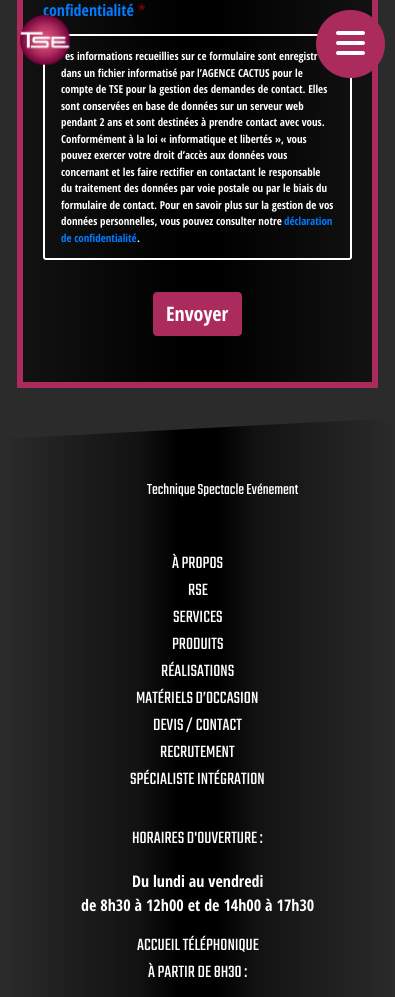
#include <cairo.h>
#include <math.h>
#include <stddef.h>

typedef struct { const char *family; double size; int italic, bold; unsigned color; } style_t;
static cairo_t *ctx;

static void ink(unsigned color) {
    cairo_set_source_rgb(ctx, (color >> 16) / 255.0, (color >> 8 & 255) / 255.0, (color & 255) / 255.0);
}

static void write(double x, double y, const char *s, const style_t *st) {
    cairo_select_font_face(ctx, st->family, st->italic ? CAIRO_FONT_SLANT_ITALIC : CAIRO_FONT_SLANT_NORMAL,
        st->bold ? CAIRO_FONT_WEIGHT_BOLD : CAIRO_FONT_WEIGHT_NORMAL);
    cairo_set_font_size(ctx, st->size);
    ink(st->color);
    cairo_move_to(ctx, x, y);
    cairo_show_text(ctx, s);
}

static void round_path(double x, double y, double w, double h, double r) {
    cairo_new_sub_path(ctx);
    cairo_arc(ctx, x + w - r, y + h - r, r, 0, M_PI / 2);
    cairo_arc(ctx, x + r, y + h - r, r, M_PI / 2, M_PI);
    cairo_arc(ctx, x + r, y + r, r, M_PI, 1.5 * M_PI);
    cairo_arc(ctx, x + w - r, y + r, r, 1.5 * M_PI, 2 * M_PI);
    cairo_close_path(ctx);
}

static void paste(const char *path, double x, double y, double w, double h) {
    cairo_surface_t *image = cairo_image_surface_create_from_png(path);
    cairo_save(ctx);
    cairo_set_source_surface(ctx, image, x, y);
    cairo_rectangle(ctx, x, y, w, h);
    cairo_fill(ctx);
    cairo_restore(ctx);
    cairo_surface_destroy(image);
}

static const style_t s1 = {"Open Sans Condensed", 16, 0, 1, 0x007bff};
static const style_t s2 = {"Open Sans Condensed", 16, 0, 1, 0x790000};
static const style_t s3 = {"Open Sans Condensed", 11, 0, 1, 0xffffff};
static const style_t s4 = {"Open Sans Condensed", 11, 0, 1, 0x007bff};
static const style_t s5 = {"Open Sans Condensed", 20, 0, 1, 0xffffff};
static const style_t s6 = {"Teko", 16, 0, 0, 0xffffff};
static const style_t s7 = {"Teko", 18, 0, 0, 0xffffff};
static const style_t s8 = {"Open Sans Condensed", 16, 0, 1, 0xffffff};

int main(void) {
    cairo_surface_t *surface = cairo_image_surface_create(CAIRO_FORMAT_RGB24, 395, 997);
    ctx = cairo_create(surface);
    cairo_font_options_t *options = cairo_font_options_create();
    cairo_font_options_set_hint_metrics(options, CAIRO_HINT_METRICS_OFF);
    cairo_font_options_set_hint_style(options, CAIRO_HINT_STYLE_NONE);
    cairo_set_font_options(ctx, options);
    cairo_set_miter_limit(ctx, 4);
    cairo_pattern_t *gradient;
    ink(0xffffff);
    cairo_paint(ctx);
    gradient = cairo_pattern_create_linear(0, -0.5, 395, -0.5);
    cairo_pattern_add_color_stop_rgba(gradient, 0, 0.169, 0.169, 0.169, 1);
    cairo_pattern_add_color_stop_rgba(gradient, 0.35, 0.071, 0.071, 0.071, 1);
    cairo_pattern_add_color_stop_rgba(gradient, 0.45, 0, 0, 0, 1);
    cairo_pattern_add_color_stop_rgba(gradient, 0.55, 0, 0, 0, 1);
    cairo_pattern_add_color_stop_rgba(gradient, 0.65, 0.071, 0.071, 0.071, 1);
    cairo_pattern_add_color_stop_rgba(gradient, 1, 0.169, 0.169, 0.169, 1);
    cairo_set_source(ctx, gradient);
    cairo_pattern_destroy(gradient);
    cairo_rectangle(ctx, 0, 418, 395, 579);
    cairo_fill(ctx);
    ink(0x2b2b2b);
    cairo_new_path(ctx);
    cairo_move_to(ctx, 0, -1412);
    cairo_line_to(ctx, 395, -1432);
    cairo_line_to(ctx, 395, 418);
    cairo_line_to(ctx, 0, 439);
    cairo_close_path(ctx);
    cairo_fill(ctx);
    gradient = cairo_pattern_create_linear(23, -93, 372, -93);
    cairo_pattern_add_color_stop_rgba(gradient, 0, 0.071, 0.071, 0.071, 1);
    cairo_pattern_add_color_stop_rgba(gradient, 0.45, 0, 0, 0, 1);
    cairo_pattern_add_color_stop_rgba(gradient, 0.55, 0, 0, 0, 1);
    cairo_pattern_add_color_stop_rgba(gradient, 1, 0.071, 0.071, 0.071, 1);
    cairo_set_source(ctx, gradient);
    cairo_pattern_destroy(gradient);
    cairo_rectangle(ctx, 23, 0, 349, 382);
    cairo_fill(ctx);
    cairo_rectangle(ctx, 20, -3, 355, 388);
    ink(0xab2c5c);
    cairo_set_line_width(ctx, 6);
    cairo_stroke(ctx);
    write(43, 16, "confidentialité", &s1);
    write(138, 16, "*", &s2);
    round_path(44, 35, 307, 224, 2);
    ink(0xffffff);
    cairo_set_line_width(ctx, 2);
    cairo_stroke(ctx);
    write(65, 60, "es informations recueillies sur ce formulaire sont enregistr", &s3);
    write(61, 77, "dans un fichier informatisé par l’AGENCE CACTUS pour le", &s3);
    write(61, 93, "compte de TSE pour la gestion des demandes de contact. Elles", &s3);
    write(61, 110, "sont conservées en base de données sur un serveur web", &s3);
    write(61, 126, "pendant 2 ans et sont destinées à prendre contact avec vous.", &s3);
    write(61, 143, "Conformément à la loi « informatique et libertés », vous", &s3);
    write(61, 159, "pouvez exercer votre droit d’accès aux données vous", &s3);
    write(61, 176, "concernant et les faire rectifier en contactant le responsable", &s3);
    write(61, 192, "du traitement des données par voie postale ou par le biais du", &s3);
    write(61, 209, "formulaire de contact. Pour en savoir plus sur la gestion de vos", &s3);
    write(61, 225, "données personnelles, vous pouvez consulter notre", &s3);
    write(284, 225, "déclaration", &s4);
    write(61, 242, "de confidentialité", &s4);
    write(137, 242, ".", &s3);
    ink(0xab2c5c);
    round_path(153, 292, 89, 44, 4);
    cairo_fill(ctx);
    write(166, 321, "Envoyer", &s5);
    ink(0xab2c5c);
    round_path(316, 10, 69, 68, 34);
    cairo_fill(ctx);
    ink(0xffffff);
    round_path(336, 31, 29, 4, 2);
    cairo_fill(ctx);
    round_path(336, 41, 29, 4, 2);
    cairo_fill(ctx);
    round_path(336, 51, 29, 4, 2);
    cairo_fill(ctx);
    paste("pic1.png", 20, 15, 50, 50);
    write(147, 494, "Technique Spectacle Evénement", &s6);
    write(172, 568, "À PROPOS", &s7);
    write(188, 595, "RSE", &s7);
    write(173, 622, "SERVICES", &s7);
    write(172, 649, "PRODUITS", &s7);
    write(161, 676, "RÉALISATIONS", &s7);
    write(136, 703, "MATÉRIELS D’OCCASION", &s7);
    write(153, 730, "DEVIS / CONTACT", &s7);
    write(160, 757, "RECRUTEMENT", &s7);
    write(130, 784, "SPÉCIALISTE INTÉGRATION", &s7);
    write(132, 843, "HORAIRES D'OUVERTURE :", &s7);
    write(132, 887, "Du lundi au vendredi", &s8);
    write(81, 911, "de 8h30 à 12h00 et de 14h00 à 17h30", &s8);
    write(137, 950, "ACCUEIL TÉLÉPHONIQUE", &s7);
    write(148, 977, "À PARTIR DE 8H30 :", &s7);
    cairo_surface_write_to_png(surface, "screenshot.png");
    cairo_font_options_destroy(options);
    cairo_destroy(ctx);
    cairo_surface_destroy(surface);
    return 0;
}
